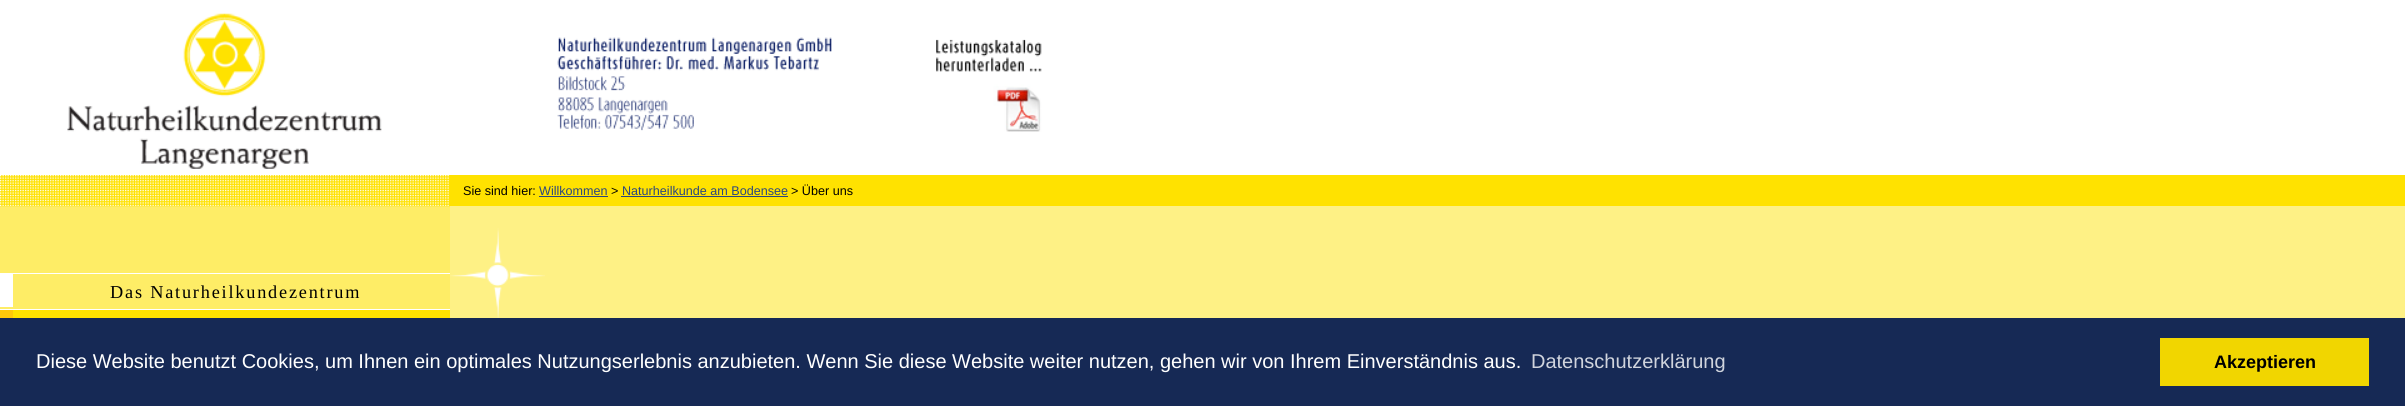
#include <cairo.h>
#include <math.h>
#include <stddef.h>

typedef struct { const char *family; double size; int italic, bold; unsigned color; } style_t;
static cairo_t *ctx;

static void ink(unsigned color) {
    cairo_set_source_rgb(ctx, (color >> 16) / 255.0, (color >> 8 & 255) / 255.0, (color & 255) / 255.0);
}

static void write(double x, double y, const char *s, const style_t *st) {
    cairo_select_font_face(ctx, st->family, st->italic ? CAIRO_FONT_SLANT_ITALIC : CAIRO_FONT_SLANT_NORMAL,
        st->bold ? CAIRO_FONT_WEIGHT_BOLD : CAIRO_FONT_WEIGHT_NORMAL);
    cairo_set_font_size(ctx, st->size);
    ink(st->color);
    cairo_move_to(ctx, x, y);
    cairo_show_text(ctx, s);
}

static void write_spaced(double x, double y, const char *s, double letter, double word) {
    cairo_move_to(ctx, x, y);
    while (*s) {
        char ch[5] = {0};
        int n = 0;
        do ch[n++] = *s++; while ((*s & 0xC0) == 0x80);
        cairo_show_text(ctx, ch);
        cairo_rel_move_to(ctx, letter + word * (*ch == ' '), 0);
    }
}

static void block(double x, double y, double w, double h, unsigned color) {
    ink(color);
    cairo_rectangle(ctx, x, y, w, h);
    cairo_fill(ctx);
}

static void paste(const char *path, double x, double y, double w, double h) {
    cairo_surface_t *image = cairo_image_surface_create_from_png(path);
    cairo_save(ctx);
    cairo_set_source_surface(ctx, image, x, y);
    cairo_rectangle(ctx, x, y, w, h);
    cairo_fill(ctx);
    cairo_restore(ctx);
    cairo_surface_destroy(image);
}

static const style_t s1 = {"Liberation Sans", 12.6, 0, 0, 0x000000};
static const style_t s2 = {"Liberation Sans", 12.6, 0, 0, 0x2b477f};
static const style_t s3 = {"Liberation Sans", 20, 0, 0, 0xffffff};
static const style_t s4 = {"Liberation Sans", 20, 0, 0, 0xd0d4dd};
static const style_t s5 = {"Liberation Sans", 18, 0, 1, 0x000000};

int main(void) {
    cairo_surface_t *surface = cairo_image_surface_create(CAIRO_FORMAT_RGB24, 2405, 406);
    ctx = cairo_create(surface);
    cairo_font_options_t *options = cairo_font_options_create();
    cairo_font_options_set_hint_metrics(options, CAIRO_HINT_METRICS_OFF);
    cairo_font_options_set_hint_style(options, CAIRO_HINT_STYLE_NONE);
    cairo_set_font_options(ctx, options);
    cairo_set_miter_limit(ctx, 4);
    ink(0xffffff);
    cairo_paint(ctx);
    paste("pic1.png", 0, 13, 450, 162);
    paste("pic2.png", 557, 37, 485, 95);
    block(450, 175, 1955, 31, 0xffe200);
    block(0, 206, 450, 103, 0xfeed66);
    paste("pic3.png", 0, 175, 450, 32);
    write(463, 195, "Sie sind hier:", &s1);
    write(539, 195, "Willkommen", &s2);
    block(539, 196, 69, 1, 0x2b477f);
    write(611, 195, ">", &s1);
    write(622, 195, "Naturheilkunde am Bodensee", &s2);
    block(621, 196, 167, 1, 0x2b477f);
    write(791, 195, "> Über uns", &s1);
    block(0, 273, 450, 1, 0xffffff);
    block(0, 274, 13, 33, 0xffffff);
    cairo_select_font_face(ctx, "Liberation Serif", CAIRO_FONT_SLANT_NORMAL, CAIRO_FONT_WEIGHT_NORMAL);
    cairo_set_font_size(ctx, 18.25);
    ink(0x000000);
    write_spaced(110, 298, "Das Naturheilkundezentrum", 1.8, 0);
    block(13, 310, 437, 8, 0xffe200);
    block(0, 310, 13, 8, 0xffc90a);
    block(450, 206, 1955, 112, 0xfef185);
    paste("pic4.png", 450, 228, 95, 90);
    block(0, 318, 2405, 88, 0x162955);
    write(36, 368, "Diese Website benutzt Cookies, um Ihnen ein optimales Nutzungserlebnis anzubieten. Wenn Sie diese Website weiter nutzen, gehen wir von Ihrem Einverständnis aus.", &s3);
    write(1531, 368, "Datenschutzerklärung", &s4);
    block(2160, 338, 209, 48, 0xf1d600);
    write(2214, 368, "Akzeptieren", &s5);
    cairo_surface_write_to_png(surface, "screenshot.png");
    cairo_font_options_destroy(options);
    cairo_destroy(ctx);
    cairo_surface_destroy(surface);
    return 0;
}
